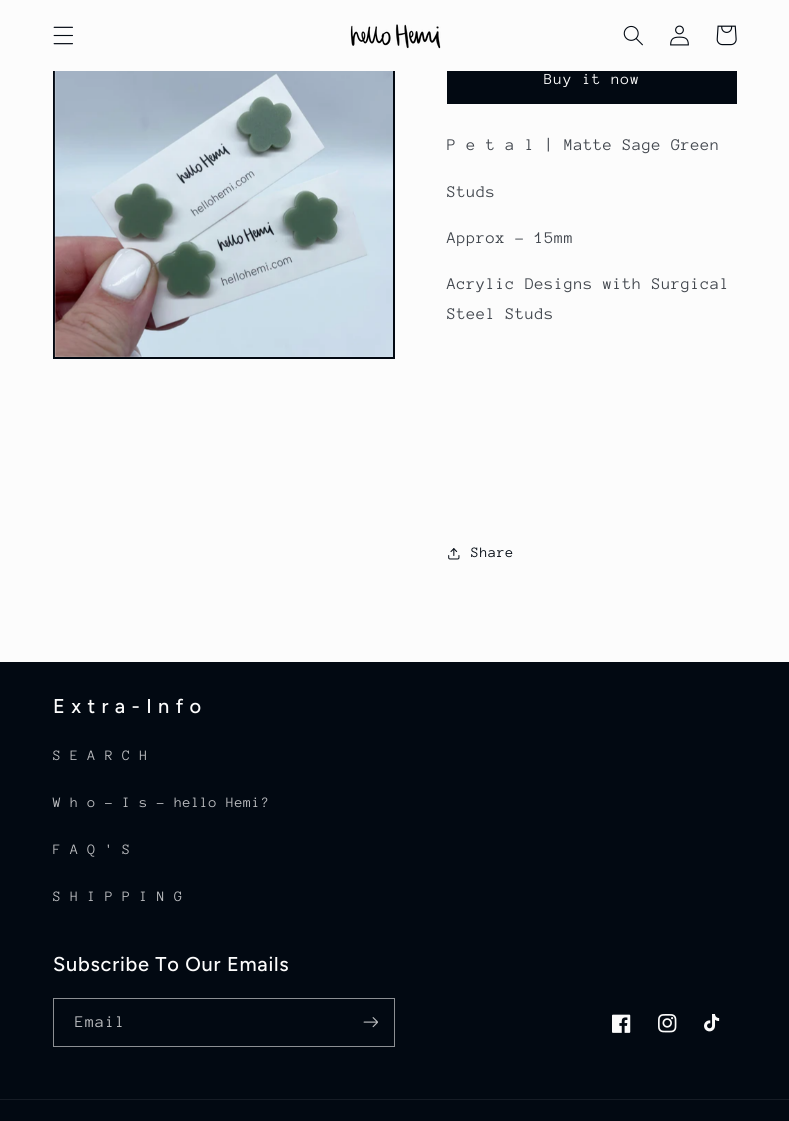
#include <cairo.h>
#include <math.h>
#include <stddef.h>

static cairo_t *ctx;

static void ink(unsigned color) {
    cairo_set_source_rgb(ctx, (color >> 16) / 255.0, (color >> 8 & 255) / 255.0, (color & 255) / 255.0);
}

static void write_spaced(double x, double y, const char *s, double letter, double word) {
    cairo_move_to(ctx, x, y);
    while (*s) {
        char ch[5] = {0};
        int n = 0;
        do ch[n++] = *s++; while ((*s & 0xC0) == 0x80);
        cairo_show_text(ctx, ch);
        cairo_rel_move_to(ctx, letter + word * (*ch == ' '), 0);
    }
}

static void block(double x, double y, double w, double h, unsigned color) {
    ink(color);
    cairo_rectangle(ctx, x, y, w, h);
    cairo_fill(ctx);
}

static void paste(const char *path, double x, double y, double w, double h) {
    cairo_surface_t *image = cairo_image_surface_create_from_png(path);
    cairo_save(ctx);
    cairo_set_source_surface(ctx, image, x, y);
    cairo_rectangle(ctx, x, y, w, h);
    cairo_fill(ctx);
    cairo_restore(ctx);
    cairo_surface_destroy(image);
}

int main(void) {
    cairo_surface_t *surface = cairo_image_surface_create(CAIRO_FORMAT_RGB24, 789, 1121);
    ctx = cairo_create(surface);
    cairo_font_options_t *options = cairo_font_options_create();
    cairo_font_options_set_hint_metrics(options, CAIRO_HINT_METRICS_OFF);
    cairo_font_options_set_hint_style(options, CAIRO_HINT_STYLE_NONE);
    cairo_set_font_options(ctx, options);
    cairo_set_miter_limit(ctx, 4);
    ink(0xfcfcfc);
    cairo_paint(ctx);
    cairo_rectangle(ctx, 54, 33, 340, 325);
    ink(0x020912);
    cairo_stroke(ctx);
    block(53, 32, 342, 39, 0xfcfcfc);
    paste("pic1.png", 53, 26, 20, 19);
    paste("pic2.png", 350, 24, 91, 25);
    paste("pic3.png", 623, 25, 20, 21);
    paste("pic4.png", 670, 25, 19, 21);
    paste("pic5.png", 716, 25, 21, 21);
    paste("pic6.png", 54, 71, 339, 286);
    block(447, 71, 290, 33, 0x020912);
    cairo_select_font_face(ctx, "Anonymous Pro", CAIRO_FONT_SLANT_NORMAL, CAIRO_FONT_WEIGHT_NORMAL);
    cairo_set_font_size(ctx, 15.75);
    ink(0xfcfcfc);
    write_spaced(544, 84, "Buy it now", 1, 0);
    cairo_set_font_size(ctx, 16.75);
    ink(0x41464d);
    write_spaced(447, 150, "P e t a l | Matte Sage Green", 0.6, 0);
    write_spaced(447, 197, "Studs", 0.6, 0);
    write_spaced(447, 243, "Approx - 15mm", 0.6, 0);
    write_spaced(447, 289, "Acrylic Designs with Surgical", 0.6, 0);
    write_spaced(447, 319, "Steel Studs", 0.6, 0);
    paste("pic7.png", 448, 548, 12, 12);
    cairo_set_font_size(ctx, 14.75);
    ink(0x020912);
    write_spaced(471, 557, "Share", 0.6, 0);
    block(0, 662, 789, 459, 0x020912);
    cairo_select_font_face(ctx, "Figtree Medium", CAIRO_FONT_SLANT_NORMAL, CAIRO_FONT_WEIGHT_NORMAL);
    cairo_set_font_size(ctx, 20);
    ink(0xfcfcfc);
    write_spaced(53, 713, "E x t r a - I n f o", 0.75, 0);
    cairo_select_font_face(ctx, "Anonymous Pro", CAIRO_FONT_SLANT_NORMAL, CAIRO_FONT_WEIGHT_NORMAL);
    cairo_set_font_size(ctx, 14.75);
    ink(0xbebfc2);
    write_spaced(53, 760, "S E A R C H", 0.6, 0);
    write_spaced(53, 807, "W h o - I s - hello Hemi?", 0.6, 0);
    write_spaced(53, 854, "F A Q ' S", 0.6, 0);
    write_spaced(53, 901, "S H I P P I N G", 0.6, 0);
    cairo_select_font_face(ctx, "Figtree Medium", CAIRO_FONT_SLANT_NORMAL, CAIRO_FONT_WEIGHT_NORMAL);
    cairo_set_font_size(ctx, 20);
    ink(0xfcfcfc);
    write_spaced(53, 971, "Subscribe To Our Emails", 0.75, 0);
    cairo_rectangle(ctx, 53.5, 998.5, 341, 48);
    ink(0x8c8f93);
    cairo_set_line_width(ctx, 1);
    cairo_stroke(ctx);
    cairo_select_font_face(ctx, "Anonymous Pro", CAIRO_FONT_SLANT_NORMAL, CAIRO_FONT_WEIGHT_NORMAL);
    cairo_set_font_size(ctx, 16.75);
    ink(0xbebfc2);
    write_spaced(75, 1027, "Email", 1, 0);
    paste("pic8.png", 363, 1017, 15, 11);
    paste("pic9.png", 612, 1014, 19, 19);
    paste("pic10.png", 658, 1014, 19, 19);
    paste("pic11.png", 704, 1014, 16, 18);
    block(0, 1099, 789, 1, 0x161c25);
    cairo_surface_write_to_png(surface, "screenshot.png");
    cairo_font_options_destroy(options);
    cairo_destroy(ctx);
    cairo_surface_destroy(surface);
    return 0;
}
